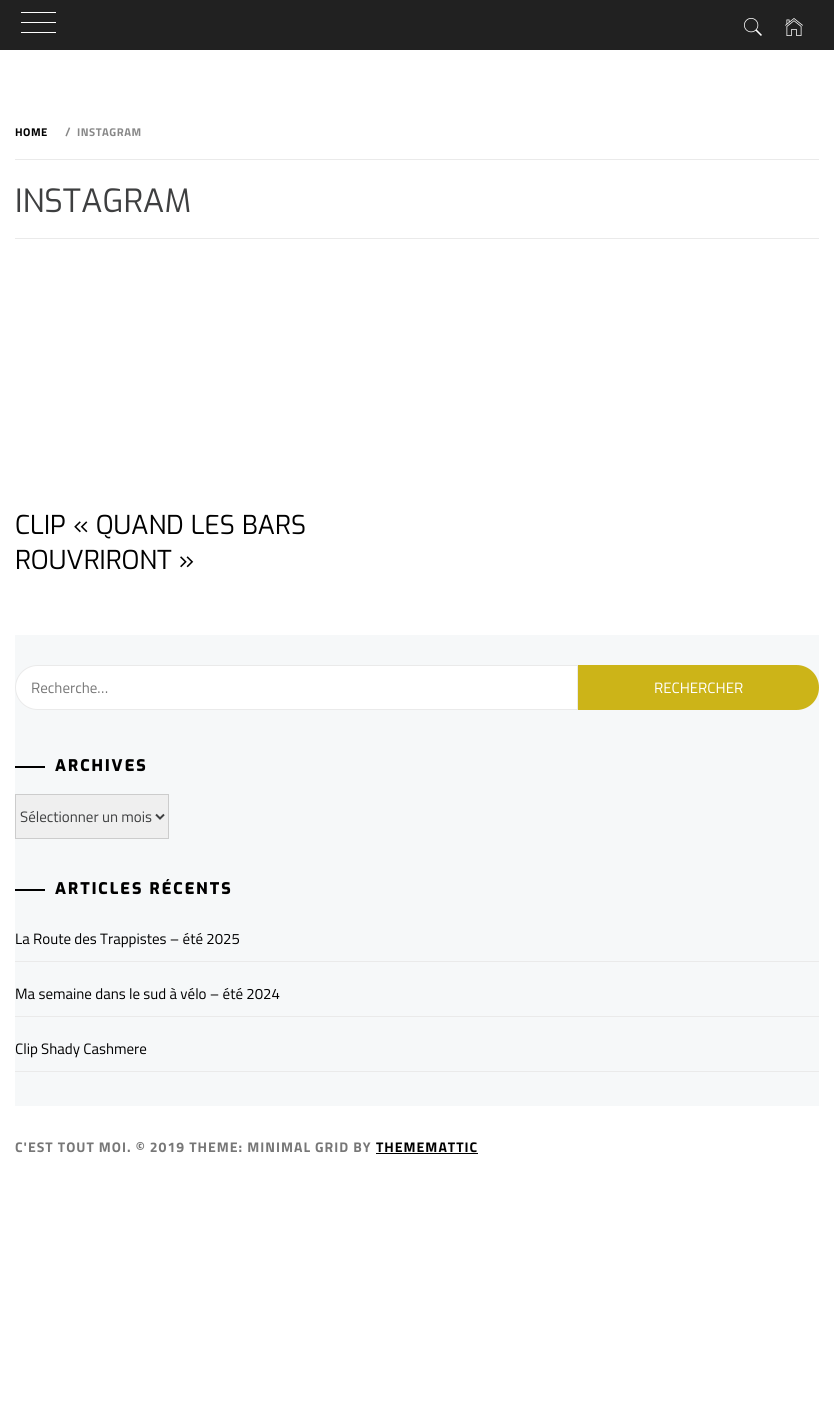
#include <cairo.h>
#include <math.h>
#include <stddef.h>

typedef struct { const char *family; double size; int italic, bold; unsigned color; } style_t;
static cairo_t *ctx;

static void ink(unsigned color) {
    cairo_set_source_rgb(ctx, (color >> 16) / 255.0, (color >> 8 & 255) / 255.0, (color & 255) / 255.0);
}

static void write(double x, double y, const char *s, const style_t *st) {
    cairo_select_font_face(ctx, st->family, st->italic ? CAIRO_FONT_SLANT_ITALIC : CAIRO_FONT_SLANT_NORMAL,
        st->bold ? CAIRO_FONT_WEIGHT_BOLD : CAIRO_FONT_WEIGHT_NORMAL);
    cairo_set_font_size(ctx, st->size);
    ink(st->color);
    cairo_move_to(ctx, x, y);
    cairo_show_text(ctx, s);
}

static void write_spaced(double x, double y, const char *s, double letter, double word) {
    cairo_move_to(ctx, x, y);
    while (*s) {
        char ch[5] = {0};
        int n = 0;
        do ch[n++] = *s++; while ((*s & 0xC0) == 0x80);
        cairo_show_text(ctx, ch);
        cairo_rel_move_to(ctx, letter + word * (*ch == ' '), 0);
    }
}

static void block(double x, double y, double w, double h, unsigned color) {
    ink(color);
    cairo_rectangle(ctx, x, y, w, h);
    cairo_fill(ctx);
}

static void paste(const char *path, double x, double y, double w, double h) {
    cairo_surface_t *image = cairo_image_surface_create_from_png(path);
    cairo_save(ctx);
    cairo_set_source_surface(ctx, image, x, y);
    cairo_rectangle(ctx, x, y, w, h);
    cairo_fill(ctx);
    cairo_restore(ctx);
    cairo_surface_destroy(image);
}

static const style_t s1 = {"Exo", 32, 0, 0, 0x3e3f40};
static const style_t s2 = {"Exo", 26, 0, 0, 0x000000};
static const style_t s3 = {"Titillium Web", 15, 0, 0, 0x777777};
static const style_t s4 = {"Titillium Web", 15, 0, 0, 0xffffff};
static const style_t s5 = {"Titillium Web", 15, 0, 0, 0x3e3f40};
static const style_t s6 = {"Titillium Web", 15, 0, 0, 0x000000};

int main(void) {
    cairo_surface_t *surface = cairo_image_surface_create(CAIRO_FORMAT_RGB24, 834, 1403);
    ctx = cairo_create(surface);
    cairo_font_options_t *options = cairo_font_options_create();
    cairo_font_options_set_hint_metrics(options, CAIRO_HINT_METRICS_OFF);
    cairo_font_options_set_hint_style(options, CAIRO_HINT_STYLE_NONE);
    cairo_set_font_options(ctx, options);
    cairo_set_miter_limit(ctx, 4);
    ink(0xffffff);
    cairo_paint(ctx);
    block(0, 0, 834, 50, 0x212121);
    block(21, 12, 35, 1, 0xffffff);
    block(21, 22, 35, 1, 0xffffff);
    block(21, 32, 35, 1, 0xffffff);
    paste("pic1.png", 744, 18, 18, 18);
    paste("pic2.png", 785, 18, 18, 18);
    block(15, 238, 804, 1, 0xeaeaea);
    block(15, 159, 804, 1, 0xeaeaea);
    cairo_select_font_face(ctx, "Titillium Web", CAIRO_FONT_SLANT_NORMAL, CAIRO_FONT_WEIGHT_BOLD);
    cairo_set_font_size(ctx, 11.25);
    ink(0x000000);
    write_spaced(15, 136, "HOME", 0.5, 0);
    cairo_set_font_size(ctx, 12);
    ink(0x888888);
    write_spaced(65, 136, "/", 0.5, 0);
    cairo_set_font_size(ctx, 11.25);
    write_spaced(77, 136, "INSTAGRAM", 0.5, 0);
    write(15, 212, "INSTAGRAM", &s1);
    write(15, 534, "CLIP « QUAND LES BARS", &s2);
    write(15, 569, "ROUVRIRONT »", &s2);
    block(15, 635, 804, 471, 0xf6f8f9);
    ink(0xffffff);
    cairo_new_path(ctx);
    cairo_move_to(ctx, 37.5, 665.5);
    cairo_line_to(ctx, 577.5, 665.5);
    cairo_line_to(ctx, 577.5, 709.5);
    cairo_line_to(ctx, 37.5, 709.5);
    cairo_curve_to(ctx, 25.5, 709.5, 15.5, 699.5, 15.5, 687.5);
    cairo_curve_to(ctx, 15.5, 675.5, 25.5, 665.5, 37.5, 665.5);
    cairo_close_path(ctx);
    cairo_fill_preserve(ctx);
    ink(0xeaeaea);
    cairo_set_line_width(ctx, 1);
    cairo_stroke(ctx);
    write(31, 693, "Recherche…", &s3);
    ink(0xccb418);
    cairo_new_path(ctx);
    cairo_move_to(ctx, 578, 665);
    cairo_line_to(ctx, 796.5, 665);
    cairo_curve_to(ctx, 809, 665, 819, 675, 819, 687.5);
    cairo_curve_to(ctx, 819, 700, 809, 710, 796.5, 710);
    cairo_line_to(ctx, 578, 710);
    cairo_close_path(ctx);
    cairo_fill(ctx);
    write(654, 693, "RECHERCHER", &s4);
    block(15, 766, 30, 2, 0x000000);
    cairo_select_font_face(ctx, "Exo ExtraBold", CAIRO_FONT_SLANT_NORMAL, CAIRO_FONT_WEIGHT_NORMAL);
    cairo_set_font_size(ctx, 16);
    write_spaced(55, 771, "ARCHIVES", 2, 0);
    ink(0xefefef);
    cairo_rectangle(ctx, 15.5, 794.5, 153, 44);
    cairo_fill_preserve(ctx);
    ink(0xcccccc);
    cairo_stroke(ctx);
    cairo_new_path(ctx);
    cairo_move_to(ctx, 156, 814.5);
    cairo_line_to(ctx, 160, 818.5);
    cairo_line_to(ctx, 164, 814.5);
    ink(0x3e3f40);
    cairo_set_line_width(ctx, 2);
    cairo_stroke(ctx);
    write(20, 822, "Sélectionner un mois", &s5);
    block(15, 889, 30, 2, 0x000000);
    cairo_select_font_face(ctx, "Exo ExtraBold", CAIRO_FONT_SLANT_NORMAL, CAIRO_FONT_WEIGHT_NORMAL);
    cairo_set_font_size(ctx, 16);
    write_spaced(55, 894, "ARTICLES RÉCENTS", 2, 0);
    block(15, 961, 804, 1, 0xeaeaea);
    write(15, 944, "La Route des Trappistes – été 2025", &s6);
    block(15, 1016, 804, 1, 0xeaeaea);
    write(15, 999, "Ma semaine dans le sud à vélo – été 2024", &s6);
    block(15, 1071, 804, 1, 0xeaeaea);
    write(15, 1054, "Clip Shady Cashmere", &s6);
    cairo_select_font_face(ctx, "Titillium Web", CAIRO_FONT_SLANT_NORMAL, CAIRO_FONT_WEIGHT_BOLD);
    cairo_set_font_size(ctx, 14);
    ink(0x777777);
    write_spaced(15, 1152, "C'EST TOUT MOI. © 2019 THEME: MINIMAL GRID BY", 1, 0);
    ink(0x000000);
    write_spaced(376, 1152, "THEMEMATTIC", 1, 0);
    block(376, 1153, 102, 1, 0x000000);
    cairo_surface_write_to_png(surface, "screenshot.png");
    cairo_font_options_destroy(options);
    cairo_destroy(ctx);
    cairo_surface_destroy(surface);
    return 0;
}
